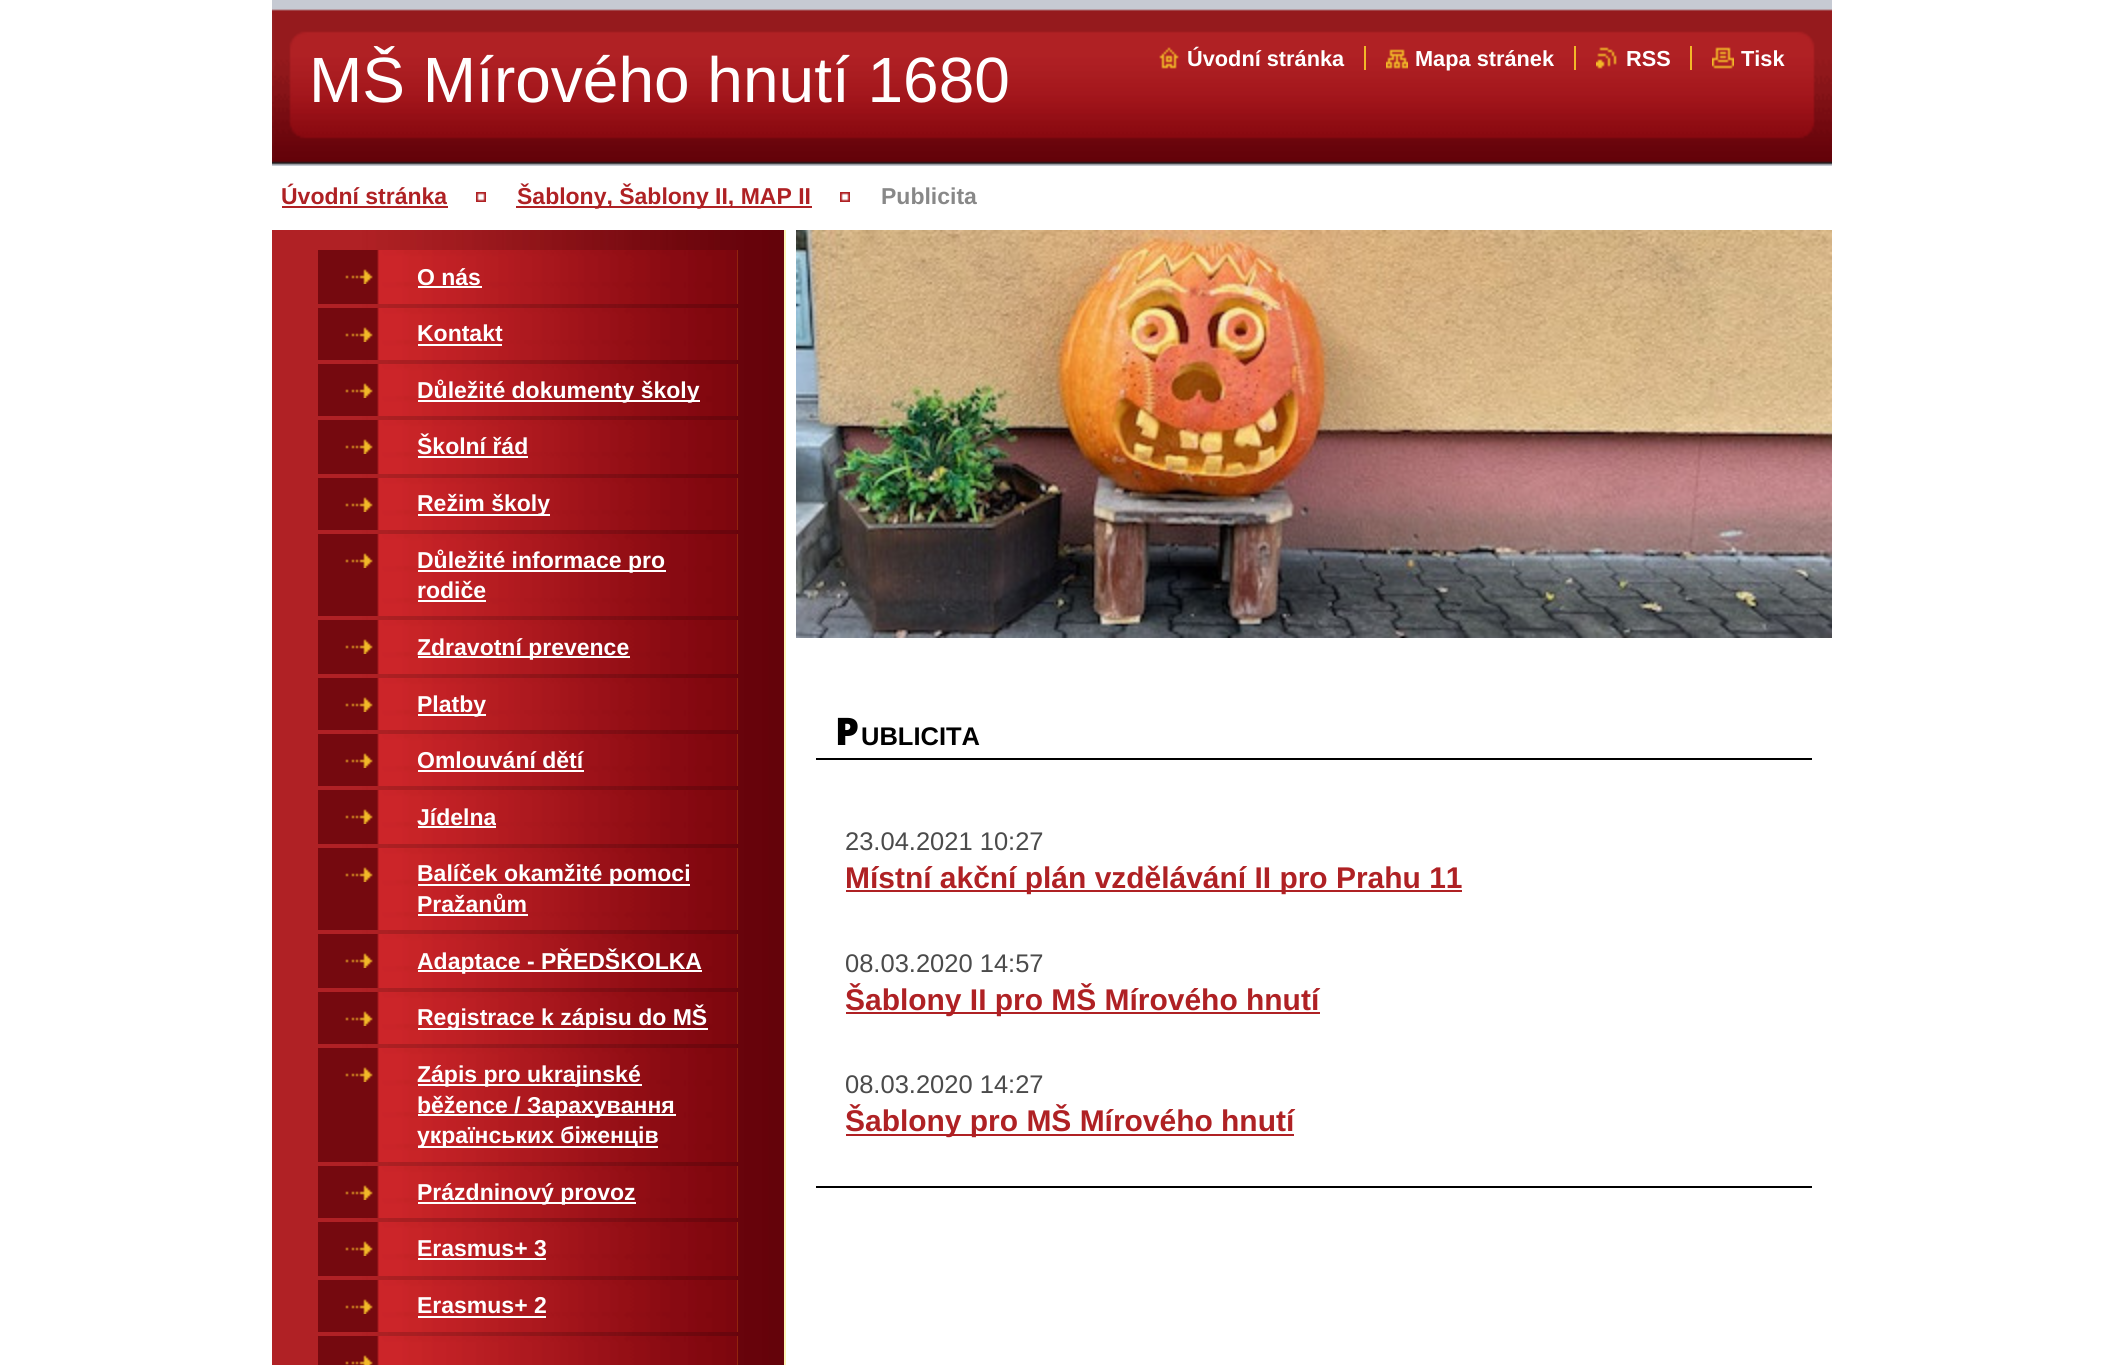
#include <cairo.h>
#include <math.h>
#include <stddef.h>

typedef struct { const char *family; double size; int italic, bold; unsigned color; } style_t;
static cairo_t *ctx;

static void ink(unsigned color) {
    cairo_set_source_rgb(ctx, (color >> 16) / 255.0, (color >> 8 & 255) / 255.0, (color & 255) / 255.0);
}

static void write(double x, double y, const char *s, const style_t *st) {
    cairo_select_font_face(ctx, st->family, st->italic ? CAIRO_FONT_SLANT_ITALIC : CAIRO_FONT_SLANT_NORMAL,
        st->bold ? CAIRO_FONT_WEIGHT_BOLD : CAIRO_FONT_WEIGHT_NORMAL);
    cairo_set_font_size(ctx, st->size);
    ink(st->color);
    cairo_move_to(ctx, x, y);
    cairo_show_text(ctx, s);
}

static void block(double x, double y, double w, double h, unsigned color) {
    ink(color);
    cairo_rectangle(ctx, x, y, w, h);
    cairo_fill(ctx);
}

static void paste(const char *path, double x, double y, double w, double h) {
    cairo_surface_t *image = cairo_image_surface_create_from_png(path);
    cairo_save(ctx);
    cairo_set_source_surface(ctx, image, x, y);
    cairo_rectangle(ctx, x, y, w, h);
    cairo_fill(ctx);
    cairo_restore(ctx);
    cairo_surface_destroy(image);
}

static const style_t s1 = {"Liberation Sans", 64, 0, 0, 0xffffff};
static const style_t s2 = {"Liberation Sans", 21.75, 0, 1, 0xffffff};
static const style_t s3 = {"Liberation Sans", 23, 0, 1, 0xaf2124};
static const style_t s4 = {"Liberation Sans", 23, 0, 1, 0x888888};
static const style_t s5 = {"Liberation Sans", 23, 0, 1, 0xffffff};
static const style_t s6 = {"Noto Sans Black", 38, 0, 0, 0x000000};
static const style_t s7 = {"Liberation Sans", 25.5, 0, 1, 0x000000};
static const style_t s8 = {"Liberation Sans", 25.5, 0, 0, 0x4b4b4b};
static const style_t s9 = {"Liberation Sans", 29.95, 0, 1, 0xaf2124};

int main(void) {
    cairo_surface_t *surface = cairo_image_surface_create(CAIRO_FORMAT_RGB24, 2101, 1365);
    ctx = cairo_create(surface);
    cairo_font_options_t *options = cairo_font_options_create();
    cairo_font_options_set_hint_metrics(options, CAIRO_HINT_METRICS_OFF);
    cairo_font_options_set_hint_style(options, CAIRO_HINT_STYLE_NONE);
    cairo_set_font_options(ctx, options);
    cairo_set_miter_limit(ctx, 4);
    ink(0xffffff);
    cairo_paint(ctx);
    block(784, 230, 2, 1135, 0xfbf6b4);
    paste("pic1.png", 272, 0, 1560, 166);
    write(309, 102, "MŠ Mírového hnutí 1680", &s1);
    paste("pic2.png", 1159, 47, 20, 22);
    write(1187, 66, "Úvodní stránka", &s2);
    paste("pic3.png", 1386, 49, 22, 20);
    write(1415, 66, "Mapa stránek", &s2);
    block(1364, 46, 2, 24, 0xf2b828);
    paste("pic4.png", 1596, 47, 21, 22);
    write(1626, 66, "RSS", &s2);
    block(1574, 46, 2, 24, 0xf2b828);
    paste("pic5.png", 1712, 47, 22, 22);
    write(1741, 66, "Tisk", &s2);
    block(1690, 46, 2, 24, 0xf2b828);
    write(281, 204, "Úvodní stránka", &s3);
    block(282, 206, 166, 2, 0xaf2124);
    paste("pic6.png", 476, 192, 10, 10);
    block(516, 206, 296, 2, 0xaf2124);
    write(517, 204, "Šablony, Šablony II, MAP II", &s3);
    paste("pic6.png", 840, 192, 10, 10);
    write(881, 204, "Publicita", &s4);
    paste("pic7.png", 272, 230, 512, 1135);
    paste("pic8.png", 318, 250, 420, 54);
    paste("pic9.png", 345, 269, 28, 15);
    write(417, 285, "O nás", &s5);
    block(418, 286, 64, 2, 0xffffff);
    paste("pic10.png", 318, 308, 420, 52);
    paste("pic9.png", 345, 327, 28, 15);
    write(417, 341, "Kontakt", &s5);
    block(418, 344, 84, 2, 0xffffff);
    paste("pic10.png", 318, 364, 420, 52);
    paste("pic9.png", 345, 383, 28, 15);
    block(418, 400, 282, 2, 0xffffff);
    write(417, 398, "Důležité dokumenty školy", &s5);
    paste("pic8.png", 318, 420, 420, 54);
    paste("pic9.png", 345, 439, 28, 15);
    write(417, 454, "Školní řád", &s5);
    block(418, 456, 110, 2, 0xffffff);
    paste("pic10.png", 318, 478, 420, 52);
    paste("pic9.png", 345, 497, 28, 15);
    block(418, 514, 132, 2, 0xffffff);
    write(417, 511, "Režim školy", &s5);
    paste("pic11.png", 318, 534, 420, 82);
    paste("pic9.png", 345, 553, 28, 15);
    block(418, 570, 248, 2, 0xffffff);
    write(417, 568, "Důležité informace pro", &s5);
    write(417, 598, "rodiče", &s5);
    block(418, 600, 68, 2, 0xffffff);
    paste("pic8.png", 318, 620, 420, 54);
    paste("pic9.png", 345, 639, 28, 15);
    block(418, 656, 212, 2, 0xffffff);
    write(417, 655, "Zdravotní prevence", &s5);
    paste("pic10.png", 318, 678, 420, 52);
    paste("pic9.png", 345, 697, 28, 15);
    block(418, 714, 68, 2, 0xffffff);
    write(417, 712, "Platby", &s5);
    paste("pic10.png", 318, 734, 420, 52);
    paste("pic9.png", 345, 753, 28, 15);
    write(417, 768, "Omlouvání dětí", &s5);
    block(418, 770, 166, 2, 0xffffff);
    paste("pic8.png", 318, 790, 420, 54);
    paste("pic9.png", 345, 809, 28, 15);
    write(417, 825, "Jídelna", &s5);
    block(418, 826, 78, 2, 0xffffff);
    paste("pic11.png", 318, 848, 420, 82);
    paste("pic9.png", 345, 867, 28, 15);
    block(418, 884, 272, 2, 0xffffff);
    write(417, 881, "Balíček okamžité pomoci", &s5);
    write(417, 912, "Pražanům", &s5);
    block(418, 914, 110, 2, 0xffffff);
    paste("pic8.png", 318, 934, 420, 54);
    paste("pic9.png", 345, 953, 28, 15);
    block(418, 970, 284, 2, 0xffffff);
    write(417, 969, "Adaptace - PŘEDŠKOLKA", &s5);
    paste("pic10.png", 318, 992, 420, 52);
    paste("pic9.png", 345, 1011, 28, 15);
    block(418, 1028, 290, 2, 0xffffff);
    write(417, 1025, "Registrace k zápisu do MŠ", &s5);
    paste("pic12.png", 318, 1048, 420, 114);
    paste("pic9.png", 345, 1067, 28, 15);
    block(418, 1084, 224, 2, 0xffffff);
    write(417, 1082, "Zápis pro ukrajinské", &s5);
    block(418, 1114, 258, 2, 0xffffff);
    write(417, 1113, "běžence / Зарахування", &s5);
    block(418, 1146, 240, 2, 0xffffff);
    write(417, 1143, "українських біженців", &s5);
    paste("pic10.png", 318, 1166, 420, 52);
    paste("pic9.png", 345, 1185, 28, 15);
    block(418, 1202, 218, 2, 0xffffff);
    write(417, 1200, "Prázdninový provoz", &s5);
    paste("pic8.png", 318, 1222, 420, 54);
    paste("pic9.png", 345, 1241, 28, 15);
    write(417, 1256, "Erasmus+ 3", &s5);
    block(418, 1258, 128, 2, 0xffffff);
    paste("pic10.png", 318, 1280, 420, 52);
    paste("pic9.png", 345, 1299, 28, 15);
    write(417, 1313, "Erasmus+ 2", &s5);
    block(418, 1316, 128, 2, 0xffffff);
    paste("pic13.png", 318, 1336, 420, 29);
    paste("pic14.png", 345, 1355, 28, 10);
    paste("pic15.png", 796, 230, 1036, 408);
    block(816, 758, 996, 2, 0x000000);
    write(835, 745, "P", &s6);
    write(861, 745, "UBLICITA", &s7);
    write(845, 850, "23.04.2021 10:27", &s8);
    block(846, 890, 616, 2, 0xaf2124);
    write(845, 888, "Místní akční plán vzdělávání II pro Prahu 11", &s9);
    write(845, 972, "08.03.2020 14:57", &s8);
    block(846, 1012, 474, 2, 0xaf2124);
    write(845, 1010, "Šablony II pro MŠ Mírového hnutí", &s9);
    write(845, 1093, "08.03.2020 14:27", &s8);
    block(846, 1134, 448, 2, 0xaf2124);
    write(845, 1131, "Šablony pro MŠ Mírového hnutí", &s9);
    block(816, 1186, 996, 2, 0x000000);
    cairo_surface_write_to_png(surface, "screenshot.png");
    cairo_font_options_destroy(options);
    cairo_destroy(ctx);
    cairo_surface_destroy(surface);
    return 0;
}
